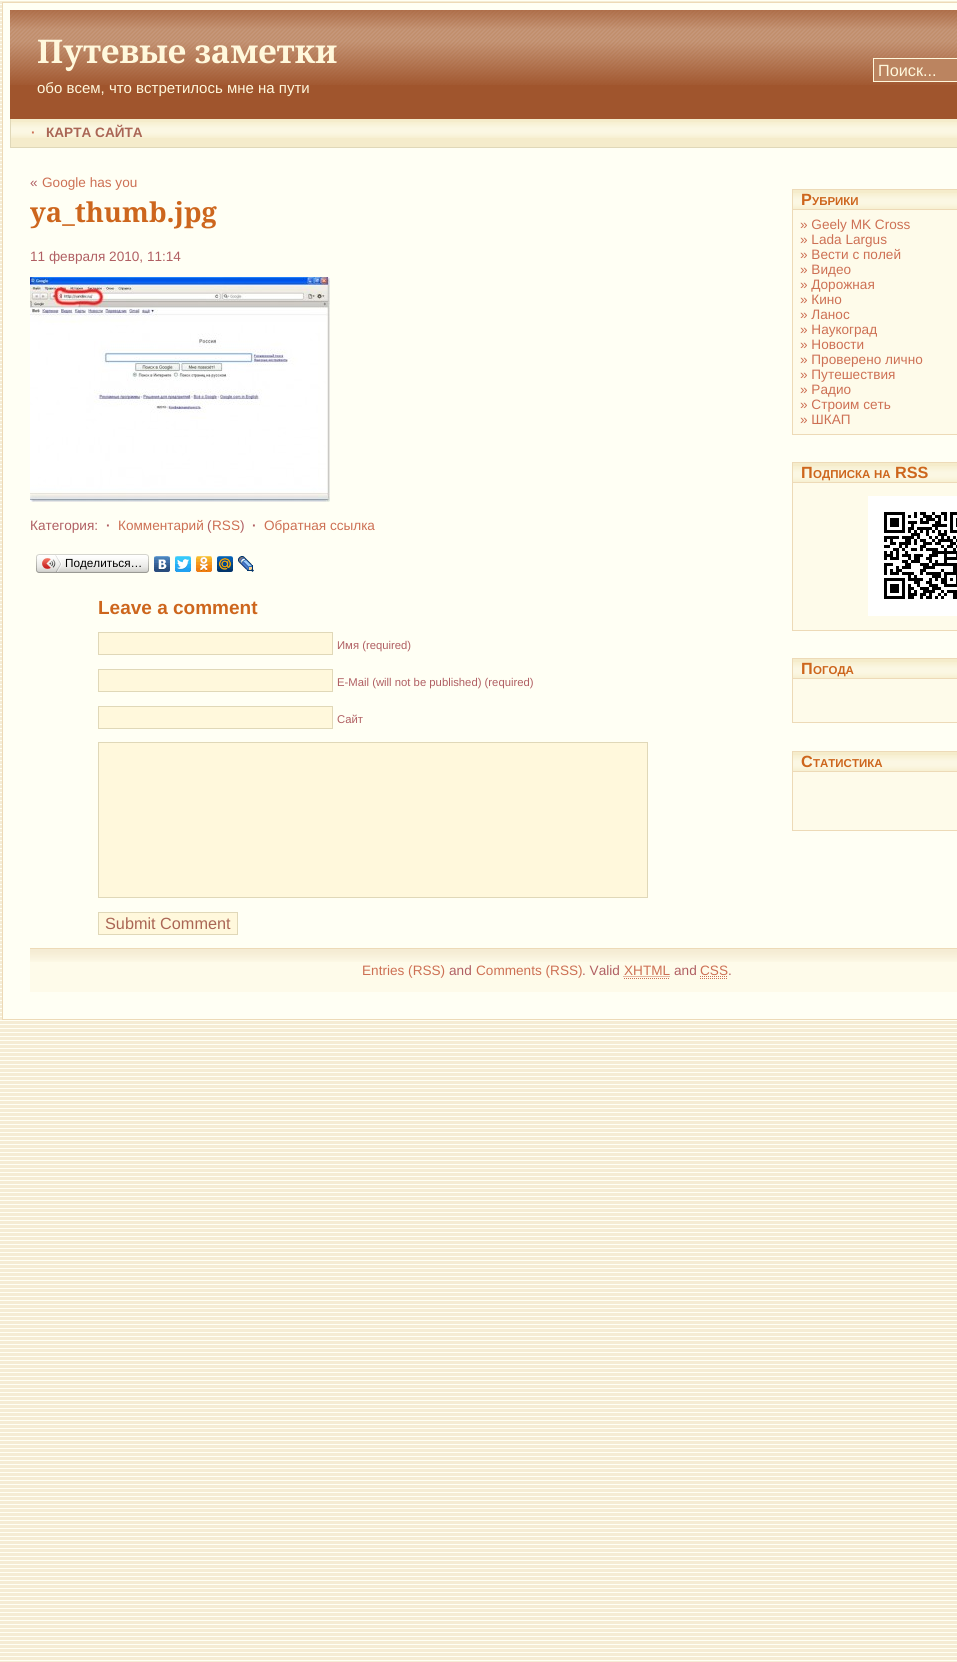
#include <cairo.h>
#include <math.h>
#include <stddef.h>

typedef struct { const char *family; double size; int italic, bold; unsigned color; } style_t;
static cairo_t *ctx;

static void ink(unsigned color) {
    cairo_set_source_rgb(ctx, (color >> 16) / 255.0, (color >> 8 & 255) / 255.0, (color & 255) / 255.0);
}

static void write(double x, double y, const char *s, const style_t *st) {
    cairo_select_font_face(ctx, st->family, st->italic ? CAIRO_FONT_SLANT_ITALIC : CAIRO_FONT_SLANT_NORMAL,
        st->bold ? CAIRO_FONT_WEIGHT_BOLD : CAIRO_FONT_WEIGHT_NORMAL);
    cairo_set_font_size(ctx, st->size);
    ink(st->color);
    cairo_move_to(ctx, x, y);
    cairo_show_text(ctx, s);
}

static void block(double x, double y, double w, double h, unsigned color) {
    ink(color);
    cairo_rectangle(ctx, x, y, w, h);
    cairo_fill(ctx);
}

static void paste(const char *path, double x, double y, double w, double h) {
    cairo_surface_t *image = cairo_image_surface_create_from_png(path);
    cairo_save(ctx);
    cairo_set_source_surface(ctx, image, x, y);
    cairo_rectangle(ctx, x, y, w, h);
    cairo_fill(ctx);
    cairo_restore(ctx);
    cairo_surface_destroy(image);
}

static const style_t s1 = {"Noto Serif", 32.6, 0, 1, 0xfff8dc};
static const style_t s2 = {"Liberation Sans", 15, 0, 0, 0xfff8dc};
static const style_t s3 = {"Liberation Sans", 16.25, 0, 0, 0xfff8dc};
static const style_t s4 = {"Liberation Sans", 13.6, 0, 1, 0xcd7054};
static const style_t s5 = {"Liberation Sans", 13.6, 0, 1, 0xaa6655};
static const style_t s6 = {"Liberation Sans", 13.6, 0, 0, 0xb05f63};
static const style_t s7 = {"Liberation Sans", 13.6, 0, 0, 0xcd7054};
static const style_t s8 = {"Noto Serif", 27.25, 0, 1, 0xcd661d};
static const style_t s9 = {"Liberation Sans", 13.6, 0, 1, 0xb05f63};
static const style_t s10 = {"Liberation Sans", 11.75, 0, 0, 0x000000};
static const style_t s11 = {"Liberation Sans", 19, 0, 1, 0xcd661d};
static const style_t s12 = {"Liberation Sans", 11.3, 0, 0, 0xb05f63};
static const style_t s13 = {"Liberation Sans", 16.25, 0, 0, 0xaa6655};
static const style_t s14 = {"Liberation Sans", 16.25, 0, 1, 0xcd661d};
static const style_t s15 = {"Liberation Sans", 11.5, 0, 1, 0xcd661d};

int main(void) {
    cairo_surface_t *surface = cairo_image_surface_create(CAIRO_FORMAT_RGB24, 957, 1662);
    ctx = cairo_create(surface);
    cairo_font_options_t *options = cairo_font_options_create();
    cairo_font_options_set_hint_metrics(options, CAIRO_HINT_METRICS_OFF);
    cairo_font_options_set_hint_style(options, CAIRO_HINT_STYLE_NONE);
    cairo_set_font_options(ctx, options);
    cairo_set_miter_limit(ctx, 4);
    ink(0xf5ecd4);
    cairo_paint(ctx);
    paste("pic1.png", 0, 0, 957, 1661);
    ink(0xfffff4);
    cairo_rectangle(ctx, 2.5, 2.5, 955, 1017);
    cairo_fill_preserve(ctx);
    ink(0xeddab7);
    cairo_set_line_width(ctx, 1);
    cairo_stroke(ctx);
    block(10, 85, 947, 34, 0xa0552d);
    paste("pic2.png", 10, 10, 947, 75);
    write(37, 63, "Путевые заметки", &s1);
    write(37, 93, "обо всем, что встретилось мне на пути", &s2);
    ink(0xbb8460);
    cairo_rectangle(ctx, 873.5, 58.5, 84, 23);
    cairo_fill_preserve(ctx);
    ink(0xfff8dc);
    cairo_stroke(ctx);
    write(878, 76, "Поиск...", &s3);
    block(10, 147, 947, 1, 0xe0d8b8);
    block(10, 119, 1, 29, 0xe0d8b8);
    block(11, 119, 946, 28, 0xf5eccb);
    paste("pic3.png", 11, 122, 946, 16);
    write(31, 137, "·", &s4);
    write(46, 137, "КАРТА САЙТА", &s5);
    write(30, 187, "«", &s6);
    write(42, 187, "Google has you", &s7);
    write(30, 222, "ya_thumb.jpg", &s8);
    write(30, 261, "11 февраля 2010, 11:14", &s6);
    paste("pic4.png", 30, 277, 300, 225);
    write(30, 530, "Категория:", &s6);
    write(106, 530, "·", &s9);
    write(118, 530, "Комментарий", &s7);
    write(207, 530, "(", &s6);
    write(212, 530, "RSS", &s7);
    write(240, 530, ")", &s6);
    write(252, 530, "·", &s9);
    write(264, 530, "Обратная ссылка", &s7);
    paste("pic5.png", 39, 554, 107, 19);
    paste("pic6.png", 36, 554, 3, 19);
    paste("pic7.png", 42, 555, 20, 17);
    write(65, 567, "Поделиться…", &s10);
    paste("pic8.png", 146, 554, 3, 19);
    paste("pic9.png", 154, 556, 16, 16);
    paste("pic10.png", 175, 556, 16, 16);
    paste("pic11.png", 196, 556, 16, 16);
    paste("pic12.png", 217, 556, 16, 16);
    paste("pic13.png", 238, 556, 16, 16);
    write(98, 614, "Leave a comment", &s11);
    ink(0xfff8dc);
    cairo_rectangle(ctx, 98.5, 632.5, 234, 22);
    cairo_fill_preserve(ctx);
    ink(0xe0d8b8);
    cairo_stroke(ctx);
    write(337, 649, "Имя (required)", &s12);
    ink(0xfff8dc);
    cairo_rectangle(ctx, 98.5, 669.5, 234, 22);
    cairo_fill_preserve(ctx);
    ink(0xe0d8b8);
    cairo_stroke(ctx);
    write(337, 686, "E-Mail (will not be published) (required)", &s12);
    ink(0xfff8dc);
    cairo_rectangle(ctx, 98.5, 706.5, 234, 22);
    cairo_fill_preserve(ctx);
    ink(0xe0d8b8);
    cairo_stroke(ctx);
    write(337, 723, "Сайт", &s12);
    ink(0xfff8dc);
    cairo_rectangle(ctx, 98.5, 742.5, 549, 155);
    cairo_fill_preserve(ctx);
    ink(0xe0d8b8);
    cairo_stroke(ctx);
    ink(0xfff8dc);
    cairo_rectangle(ctx, 98.5, 912.5, 139, 22);
    cairo_fill_preserve(ctx);
    ink(0xe0d8b8);
    cairo_stroke(ctx);
    write(105, 929, "Submit Comment", &s13);
    block(793, 210, 164, 224, 0xfefbea);
    cairo_rectangle(ctx, 792.5, 189.5, 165, 245);
    ink(0xeddab7);
    cairo_stroke(ctx);
    block(793, 190, 164, 3, 0xf5eccb);
    paste("pic14.png", 793, 193, 164, 16);
    block(793, 209, 164, 1, 0xeddab7);
    write(801, 205, "Р", &s14);
    write(812, 205, "УБРИКИ", &s15);
    write(800, 229, "» Geely MK Cross", &s7);
    write(800, 244, "» Lada Largus", &s7);
    write(800, 259, "» Вести с полей", &s7);
    write(800, 274, "» Видео", &s7);
    write(800, 289, "» Дорожная", &s7);
    write(800, 304, "» Кино", &s7);
    write(800, 319, "» Ланос", &s7);
    write(800, 334, "» Наукоград", &s7);
    write(800, 349, "» Новости", &s7);
    write(800, 364, "» Проверено лично", &s7);
    write(800, 379, "» Путешествия", &s7);
    write(800, 394, "» Радио", &s7);
    write(800, 409, "» Строим сеть", &s7);
    write(800, 424, "» ШКАП", &s7);
    block(793, 483, 164, 147, 0xfefbea);
    cairo_rectangle(ctx, 792.5, 462.5, 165, 168);
    ink(0xeddab7);
    cairo_stroke(ctx);
    block(793, 463, 164, 3, 0xf5eccb);
    paste("pic14.png", 793, 466, 164, 16);
    block(793, 482, 164, 1, 0xeddab7);
    write(801, 478, "П", &s14);
    write(813, 478, "ОДПИСКА", &s15);
    write(874, 478, "НА", &s15);
    write(895, 478, "RSS", &s14);
    paste("pic15.png", 868, 496, 89, 120);
    block(793, 679, 164, 43, 0xfefbea);
    cairo_rectangle(ctx, 792.5, 658.5, 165, 64);
    ink(0xeddab7);
    cairo_stroke(ctx);
    block(793, 659, 164, 3, 0xf5eccb);
    paste("pic14.png", 793, 662, 164, 16);
    block(793, 678, 164, 1, 0xeddab7);
    write(801, 674, "П", &s14);
    write(813, 674, "ОГОДА", &s15);
    block(793, 772, 164, 58, 0xfefbea);
    cairo_rectangle(ctx, 792.5, 751.5, 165, 79);
    ink(0xeddab7);
    cairo_stroke(ctx);
    block(793, 752, 164, 3, 0xf5eccb);
    paste("pic14.png", 793, 755, 164, 16);
    block(793, 771, 164, 1, 0xeddab7);
    write(801, 767, "С", &s14);
    write(813, 767, "ТАТИСТИКА", &s15);
    block(30, 962, 927, 30, 0xfefbea);
    paste("pic16.png", 30, 949, 927, 13);
    block(30, 948, 927, 1, 0xeddab7);
    write(362, 975, "Entries (RSS)", &s7);
    write(449, 975, "and", &s6);
    write(476, 975, "Comments (RSS)", &s7);
    write(582, 975, ". Valid", &s6);
    write(624, 975, "XHTML", &s7);
    cairo_new_path(ctx);
    cairo_move_to(ctx, 624, 978.5);
    cairo_line_to(ctx, 670, 978.5);
    cairo_move_to(ctx, 623.5, 976.5);
    cairo_line_to(ctx, 670, 976.5);
    cairo_set_dash(ctx, (double[]){1, 1}, 2, 0);
    cairo_stroke(ctx);
    write(674, 975, "and", &s6);
    write(700, 975, "CSS", &s7);
    cairo_new_path(ctx);
    cairo_move_to(ctx, 700, 978.5);
    cairo_line_to(ctx, 728, 978.5);
    cairo_move_to(ctx, 700, 976.5);
    cairo_line_to(ctx, 728, 976.5);
    cairo_stroke(ctx);
    write(728, 975, ".", &s6);
    cairo_surface_write_to_png(surface, "screenshot.png");
    cairo_font_options_destroy(options);
    cairo_destroy(ctx);
    cairo_surface_destroy(surface);
    return 0;
}
